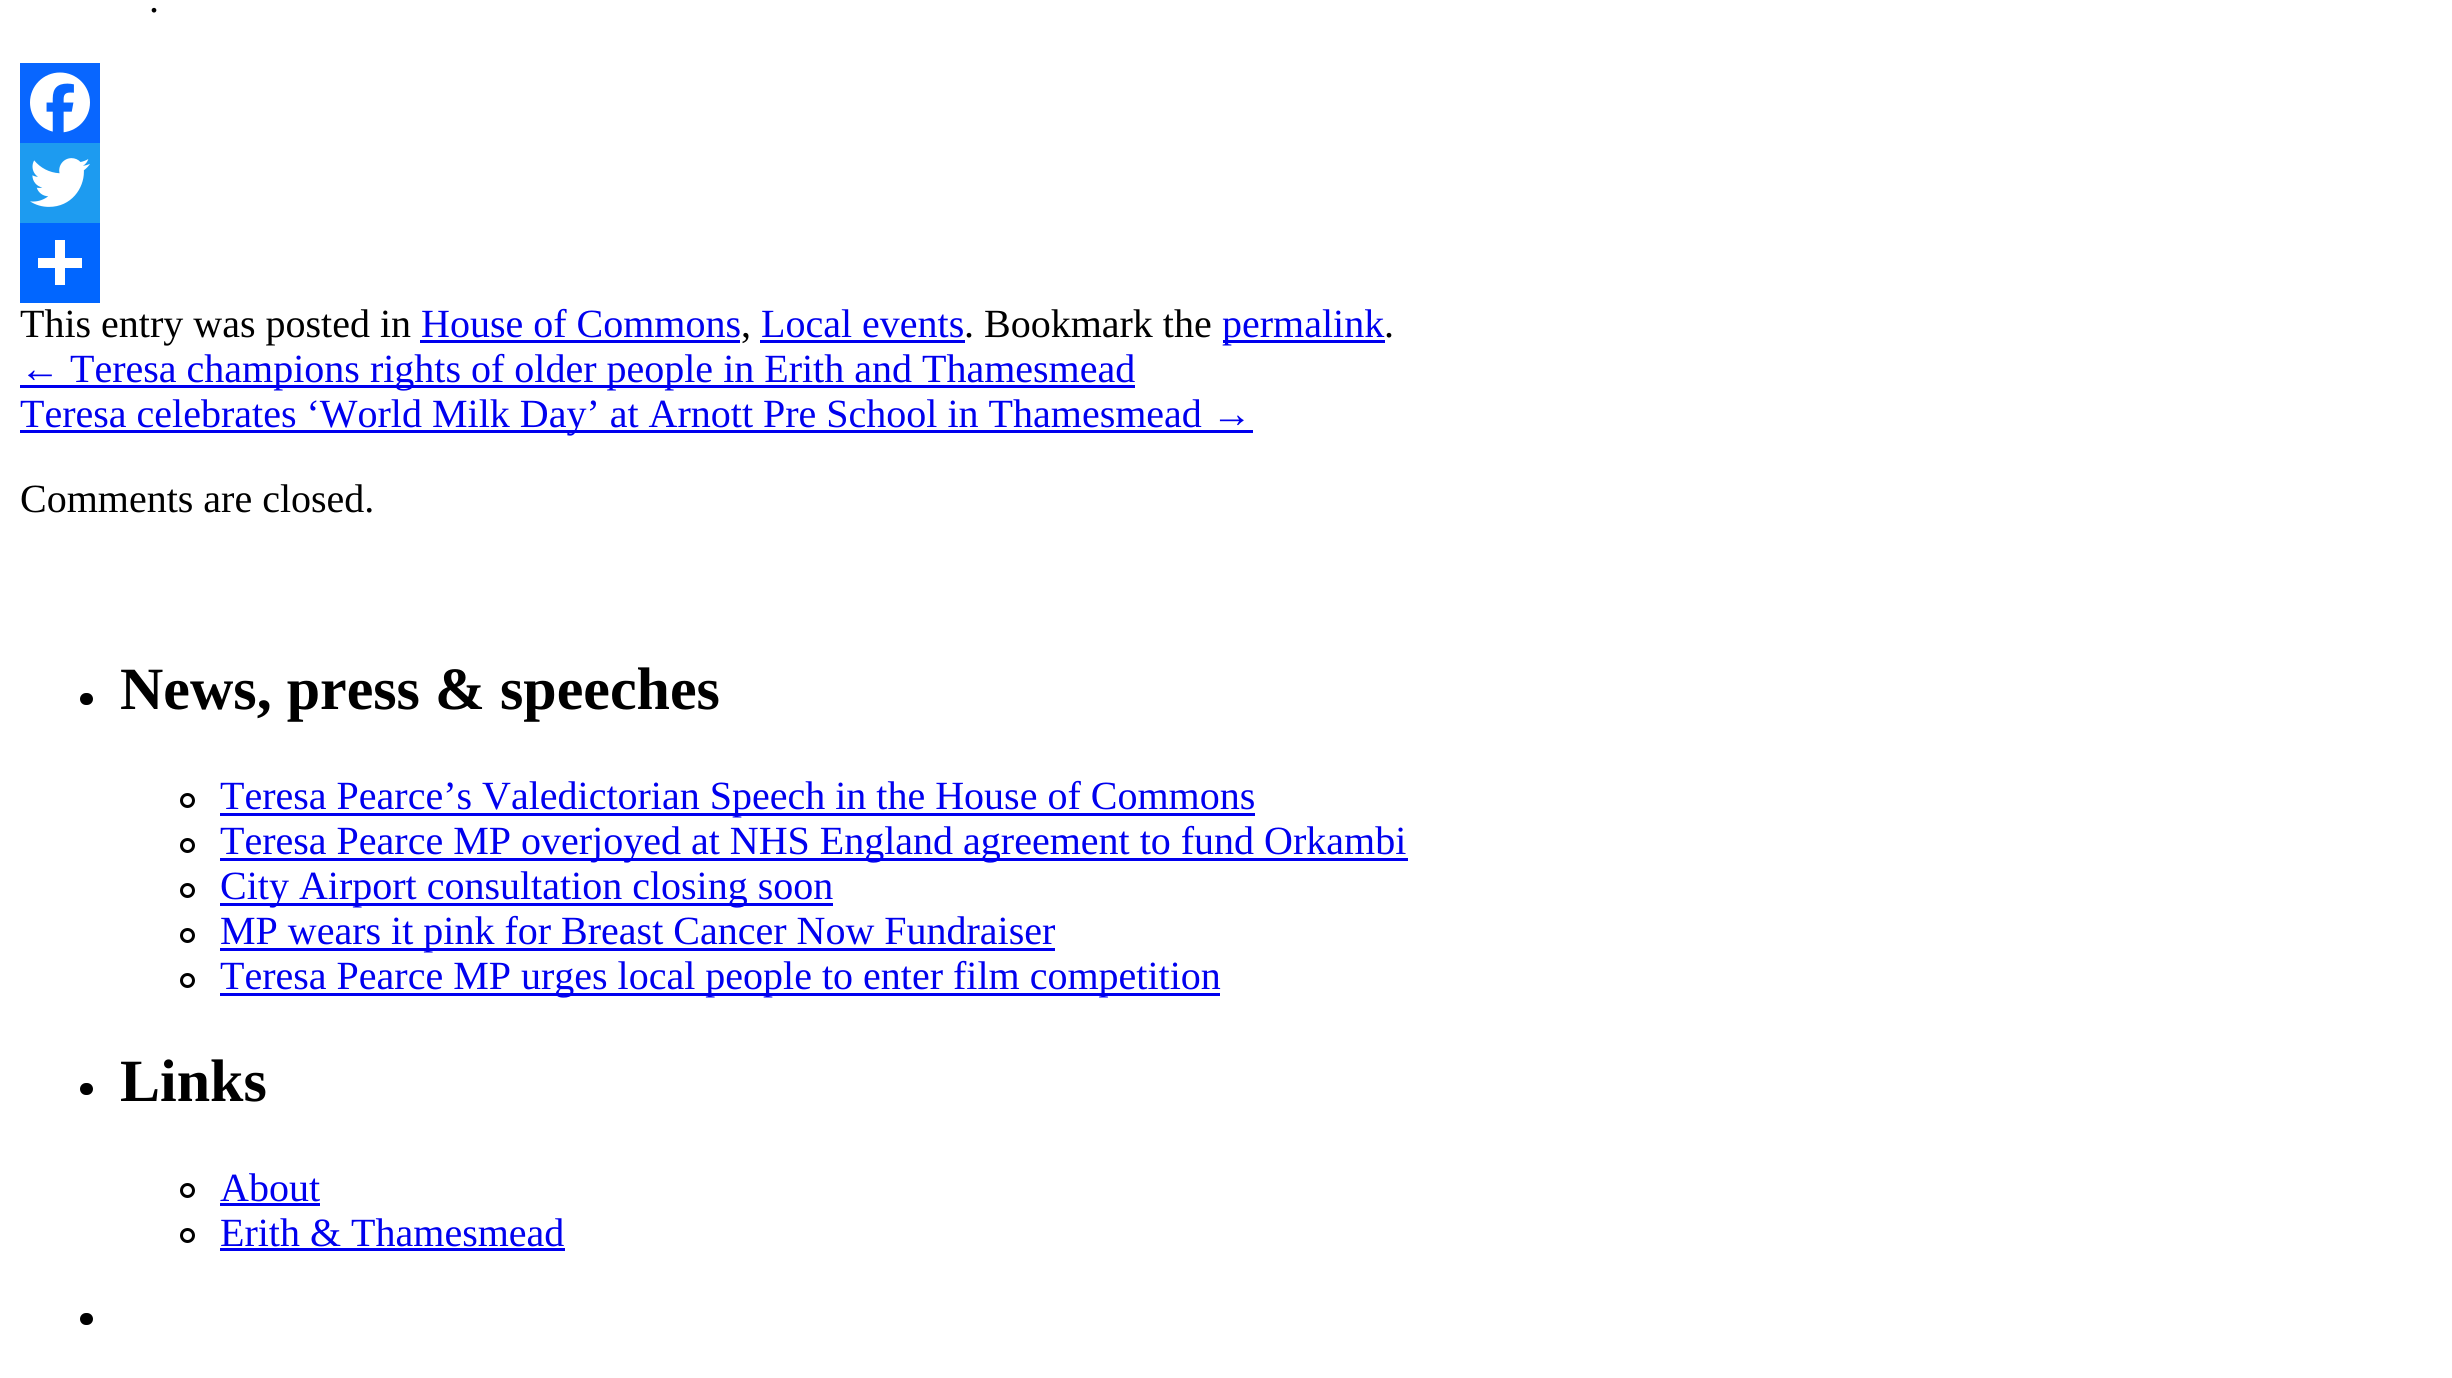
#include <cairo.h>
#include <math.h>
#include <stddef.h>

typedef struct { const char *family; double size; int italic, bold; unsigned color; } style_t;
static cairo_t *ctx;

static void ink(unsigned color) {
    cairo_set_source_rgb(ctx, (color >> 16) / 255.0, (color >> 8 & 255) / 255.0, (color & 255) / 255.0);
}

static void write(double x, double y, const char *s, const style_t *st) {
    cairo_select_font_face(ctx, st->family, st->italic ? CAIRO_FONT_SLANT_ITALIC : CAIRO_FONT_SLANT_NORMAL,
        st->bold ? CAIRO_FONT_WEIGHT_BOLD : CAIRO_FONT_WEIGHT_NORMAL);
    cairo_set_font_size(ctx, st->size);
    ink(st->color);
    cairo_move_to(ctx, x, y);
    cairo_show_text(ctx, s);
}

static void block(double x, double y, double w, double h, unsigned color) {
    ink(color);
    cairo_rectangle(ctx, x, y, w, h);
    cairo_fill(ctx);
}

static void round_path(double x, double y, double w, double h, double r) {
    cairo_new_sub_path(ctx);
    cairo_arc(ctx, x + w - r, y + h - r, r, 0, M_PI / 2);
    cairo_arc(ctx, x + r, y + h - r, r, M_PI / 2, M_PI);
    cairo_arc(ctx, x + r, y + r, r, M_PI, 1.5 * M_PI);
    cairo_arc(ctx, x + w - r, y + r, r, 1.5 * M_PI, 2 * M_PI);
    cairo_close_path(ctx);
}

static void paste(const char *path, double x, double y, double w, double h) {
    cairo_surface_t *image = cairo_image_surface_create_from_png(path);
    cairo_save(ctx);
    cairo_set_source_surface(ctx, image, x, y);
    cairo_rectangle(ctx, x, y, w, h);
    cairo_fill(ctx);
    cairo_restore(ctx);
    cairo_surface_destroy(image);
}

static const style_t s1 = {"Liberation Serif", 40, 0, 0, 0x000000};
static const style_t s2 = {"Liberation Serif", 40, 0, 0, 0x0000ee};
static const style_t s3 = {"Liberation Serif", 60, 0, 1, 0x000000};

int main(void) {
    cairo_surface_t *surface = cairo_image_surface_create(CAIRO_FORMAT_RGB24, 2452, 1378);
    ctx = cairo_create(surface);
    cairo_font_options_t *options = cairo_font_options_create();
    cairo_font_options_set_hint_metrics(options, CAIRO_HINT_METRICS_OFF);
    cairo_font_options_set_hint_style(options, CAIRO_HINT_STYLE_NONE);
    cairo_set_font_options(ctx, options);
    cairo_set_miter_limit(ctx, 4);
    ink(0xffffff);
    cairo_paint(ctx);
    write(149, 12, ".", &s1);
    block(20, 63, 80, 80, 0x0866ff);
    paste("pic1.png", 30, 72, 60, 61);
    block(20, 143, 80, 80, 0x1d9bf0);
    paste("pic2.png", 30, 158, 60, 49);
    block(20, 223, 80, 80, 0x0166ff);
    block(55, 240, 10, 45, 0xffffff);
    block(38, 258, 44, 10, 0xffffff);
    write(20, 337, "This entry was posted in", &s1);
    write(421, 337, "House of Commons", &s2);
    block(420, 340, 320, 3, 0x0000ee);
    write(741, 337, ",", &s1);
    write(761, 337, "Local events", &s2);
    block(760, 340, 205, 3, 0x0000ee);
    write(964, 337, ". Bookmark the", &s1);
    block(1223, 340, 162, 3, 0x0000ee);
    write(1222, 337, "permalink", &s2);
    write(1384, 337, ".", &s1);
    block(20, 385, 1115, 3, 0x0000ee);
    write(20, 382, "← Teresa champions rights of older people in Erith and Thamesmead", &s2);
    block(20, 430, 1233, 3, 0x0000ee);
    write(20, 427, "Teresa celebrates ‘World Milk Day’ at Arnott Pre School in Thamesmead →", &s2);
    write(20, 512, "Comments are closed.", &s1);
    round_path(80, 693, 13, 12, 6);
    cairo_fill(ctx);
    write(120, 709, "News, press & speeches", &s3);
    cairo_new_path(ctx);
    cairo_arc(ctx, 187.5, 800.5, 6, 0, 2 * M_PI);
    cairo_set_line_width(ctx, 3);
    cairo_stroke(ctx);
    block(220, 813, 1035, 3, 0x0000ee);
    write(220, 809, "Teresa Pearce’s Valedictorian Speech in the House of Commons", &s2);
    cairo_new_path(ctx);
    cairo_arc(ctx, 187.5, 845.5, 6, 0, 2 * M_PI);
    ink(0x000000);
    cairo_stroke(ctx);
    block(220, 858, 1188, 3, 0x0000ee);
    write(220, 854, "Teresa Pearce MP overjoyed at NHS England agreement to fund Orkambi", &s2);
    cairo_new_path(ctx);
    cairo_arc(ctx, 187.5, 890.5, 6, 0, 2 * M_PI);
    ink(0x000000);
    cairo_stroke(ctx);
    block(220, 903, 613, 3, 0x0000ee);
    write(220, 899, "City Airport consultation closing soon", &s2);
    cairo_new_path(ctx);
    cairo_arc(ctx, 187.5, 935.5, 6, 0, 2 * M_PI);
    ink(0x000000);
    cairo_stroke(ctx);
    block(220, 948, 835, 3, 0x0000ee);
    write(220, 944, "MP wears it pink for Breast Cancer Now Fundraiser", &s2);
    cairo_new_path(ctx);
    cairo_arc(ctx, 187.5, 980.5, 6, 0, 2 * M_PI);
    ink(0x000000);
    cairo_stroke(ctx);
    block(220, 993, 1000, 3, 0x0000ee);
    write(220, 989, "Teresa Pearce MP urges local people to enter film competition", &s2);
    ink(0x000000);
    round_path(80, 1083, 13, 12, 6);
    cairo_fill(ctx);
    write(120, 1101, "Links", &s3);
    cairo_new_path(ctx);
    cairo_arc(ctx, 187.5, 1190.5, 6, 0, 2 * M_PI);
    cairo_stroke(ctx);
    write(220, 1201, "About", &s2);
    block(220, 1203, 100, 3, 0x0000ee);
    cairo_new_path(ctx);
    cairo_arc(ctx, 187.5, 1235.5, 6, 0, 2 * M_PI);
    ink(0x000000);
    cairo_stroke(ctx);
    write(220, 1246, "Erith & Thamesmead", &s2);
    block(220, 1248, 345, 3, 0x0000ee);
    ink(0x000000);
    round_path(80, 1313, 13, 12, 6);
    cairo_fill(ctx);
    cairo_surface_write_to_png(surface, "screenshot.png");
    cairo_font_options_destroy(options);
    cairo_destroy(ctx);
    cairo_surface_destroy(surface);
    return 0;
}
